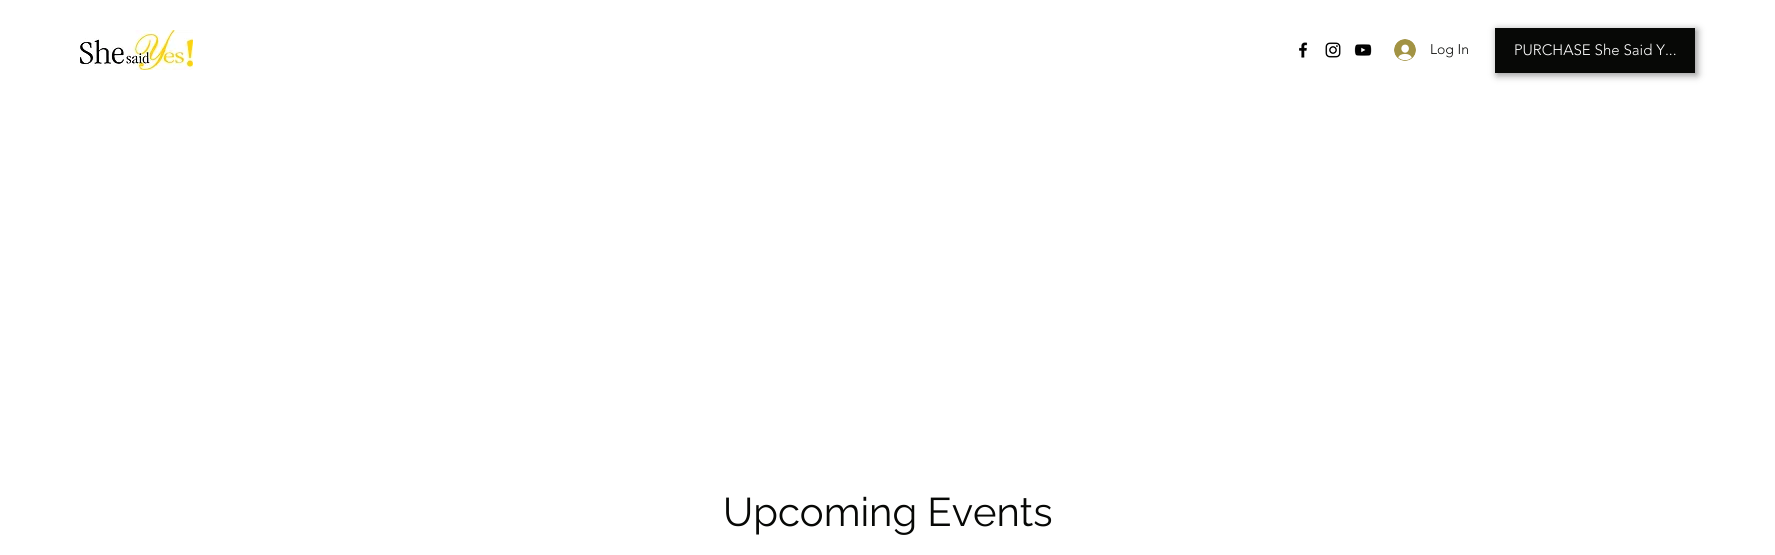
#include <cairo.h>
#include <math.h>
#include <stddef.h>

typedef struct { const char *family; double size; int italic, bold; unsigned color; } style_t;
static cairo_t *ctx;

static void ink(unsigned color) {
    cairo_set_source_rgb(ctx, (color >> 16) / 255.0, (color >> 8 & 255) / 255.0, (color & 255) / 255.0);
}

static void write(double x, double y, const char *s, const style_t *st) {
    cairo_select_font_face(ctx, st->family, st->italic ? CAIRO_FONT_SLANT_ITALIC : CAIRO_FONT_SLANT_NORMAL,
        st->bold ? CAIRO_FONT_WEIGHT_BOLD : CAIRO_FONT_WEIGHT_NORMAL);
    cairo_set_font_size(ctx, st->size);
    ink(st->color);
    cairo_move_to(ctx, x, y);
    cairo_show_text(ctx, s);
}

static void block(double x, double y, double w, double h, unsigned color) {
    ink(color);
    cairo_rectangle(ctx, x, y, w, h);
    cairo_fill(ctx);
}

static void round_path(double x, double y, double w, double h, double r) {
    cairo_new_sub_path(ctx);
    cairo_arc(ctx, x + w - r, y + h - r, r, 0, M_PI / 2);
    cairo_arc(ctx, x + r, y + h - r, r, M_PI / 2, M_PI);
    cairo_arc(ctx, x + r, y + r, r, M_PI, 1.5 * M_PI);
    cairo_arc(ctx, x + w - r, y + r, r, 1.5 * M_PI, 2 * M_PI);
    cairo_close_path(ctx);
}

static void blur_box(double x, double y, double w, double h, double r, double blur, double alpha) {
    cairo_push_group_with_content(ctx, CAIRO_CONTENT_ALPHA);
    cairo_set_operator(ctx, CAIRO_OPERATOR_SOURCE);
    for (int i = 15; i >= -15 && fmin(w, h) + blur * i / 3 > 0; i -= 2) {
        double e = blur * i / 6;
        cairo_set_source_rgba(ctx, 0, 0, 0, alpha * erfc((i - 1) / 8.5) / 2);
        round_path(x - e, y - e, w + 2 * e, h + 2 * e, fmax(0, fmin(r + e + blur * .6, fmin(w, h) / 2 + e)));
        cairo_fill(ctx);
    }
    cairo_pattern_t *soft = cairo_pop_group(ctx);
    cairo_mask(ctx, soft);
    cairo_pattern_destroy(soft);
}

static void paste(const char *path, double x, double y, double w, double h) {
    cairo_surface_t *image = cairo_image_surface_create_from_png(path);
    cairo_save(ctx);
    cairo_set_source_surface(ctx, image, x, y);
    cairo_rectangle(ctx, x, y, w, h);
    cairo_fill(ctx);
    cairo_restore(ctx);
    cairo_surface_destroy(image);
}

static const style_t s1 = {"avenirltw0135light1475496 Light", 14, 0, 0, 0x070806};
static const style_t s2 = {"avenirltw0135light1475496 Light", 15, 0, 0, 0xffffff};
static const style_t s3 = {"Raleway", 40, 0, 0, 0x070806};

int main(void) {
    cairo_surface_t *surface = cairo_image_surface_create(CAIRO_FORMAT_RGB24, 1775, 555);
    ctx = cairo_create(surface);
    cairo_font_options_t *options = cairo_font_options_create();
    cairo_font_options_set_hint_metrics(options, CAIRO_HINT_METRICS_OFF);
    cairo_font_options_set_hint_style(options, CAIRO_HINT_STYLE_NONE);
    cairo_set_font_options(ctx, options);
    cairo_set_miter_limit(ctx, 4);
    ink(0xffffff);
    cairo_paint(ctx);
    paste("pic1.png", 80, 30, 113, 40);
    paste("pic2.png", 1299, 42, 9, 16);
    paste("pic3.png", 1325, 42, 16, 16);
    paste("pic4.png", 1354, 44, 18, 12);
    paste("pic5.png", 1394, 39, 22, 22);
    write(1430, 54, "Log In", &s1);
    ink(0x000000);
    blur_box(1497, 30, 200, 45, 0, 4, 0.45);
    block(1495, 28, 200, 45, 0x070806);
    write(1514, 55, "PURCHASE She Said Y...", &s2);
    write(723, 526, "Upcoming Events", &s3);
    cairo_surface_write_to_png(surface, "screenshot.png");
    cairo_font_options_destroy(options);
    cairo_destroy(ctx);
    cairo_surface_destroy(surface);
    return 0;
}
